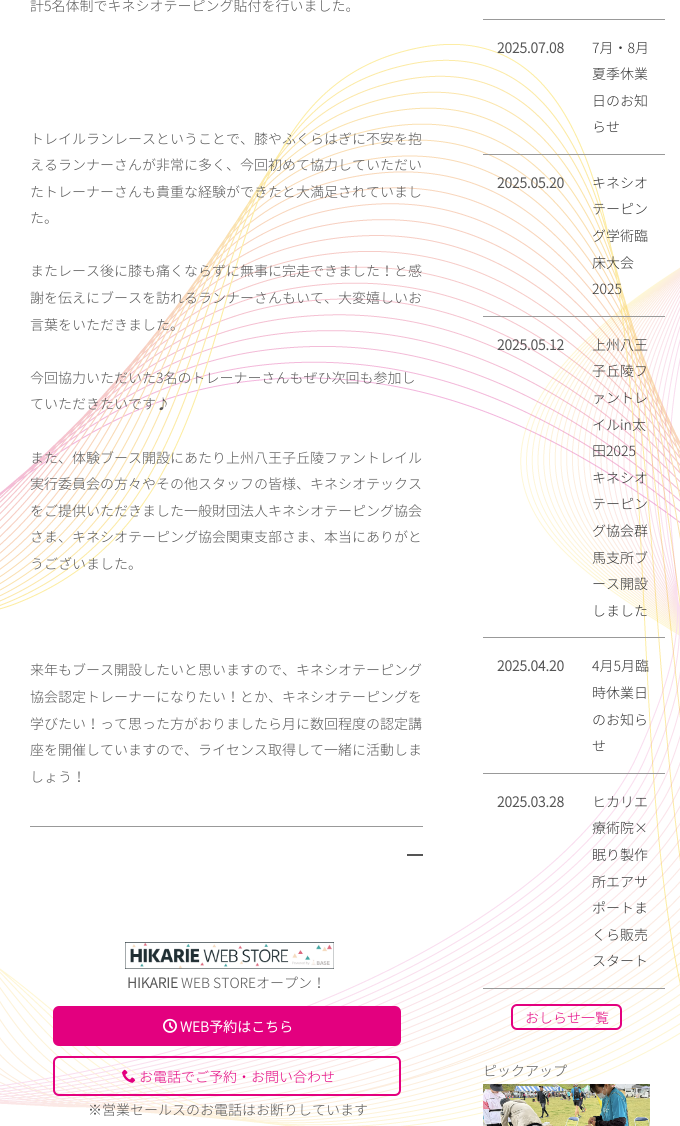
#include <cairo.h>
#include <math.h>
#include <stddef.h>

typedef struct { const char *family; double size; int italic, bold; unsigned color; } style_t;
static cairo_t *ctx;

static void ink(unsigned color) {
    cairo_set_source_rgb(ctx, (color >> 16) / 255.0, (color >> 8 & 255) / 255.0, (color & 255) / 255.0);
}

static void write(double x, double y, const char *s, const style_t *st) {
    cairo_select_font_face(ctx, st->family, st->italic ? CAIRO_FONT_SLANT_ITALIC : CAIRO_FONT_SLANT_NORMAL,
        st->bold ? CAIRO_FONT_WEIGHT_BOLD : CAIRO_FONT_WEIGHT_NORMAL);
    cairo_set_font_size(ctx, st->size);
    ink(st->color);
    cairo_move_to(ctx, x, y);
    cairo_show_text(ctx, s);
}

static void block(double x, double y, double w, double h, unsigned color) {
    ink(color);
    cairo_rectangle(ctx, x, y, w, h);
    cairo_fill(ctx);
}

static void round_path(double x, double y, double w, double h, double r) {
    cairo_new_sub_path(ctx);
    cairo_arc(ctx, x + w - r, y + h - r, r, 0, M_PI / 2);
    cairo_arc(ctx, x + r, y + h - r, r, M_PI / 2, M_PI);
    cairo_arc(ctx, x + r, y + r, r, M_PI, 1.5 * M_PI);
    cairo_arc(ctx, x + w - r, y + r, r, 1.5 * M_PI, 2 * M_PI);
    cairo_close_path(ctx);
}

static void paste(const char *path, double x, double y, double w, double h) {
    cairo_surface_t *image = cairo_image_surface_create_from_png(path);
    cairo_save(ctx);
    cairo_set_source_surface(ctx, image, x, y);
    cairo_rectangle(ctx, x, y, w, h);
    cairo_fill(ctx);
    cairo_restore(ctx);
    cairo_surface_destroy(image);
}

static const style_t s1 = {"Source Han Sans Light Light", 14, 0, 0, 0x555555};
static const style_t s2 = {"Source Han Sans Light", 14, 0, 1, 0x555555};
static const style_t s3 = {"Source Han Sans Light", 14, 0, 1, 0xffffff};
static const style_t s4 = {"Source Han Sans Light Light", 14, 0, 0, 0xe3007f};
static const style_t s5 = {"Source Han Sans Light Light", 14, 0, 0, 0x333333};

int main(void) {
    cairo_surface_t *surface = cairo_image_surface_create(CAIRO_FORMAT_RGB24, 680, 1126);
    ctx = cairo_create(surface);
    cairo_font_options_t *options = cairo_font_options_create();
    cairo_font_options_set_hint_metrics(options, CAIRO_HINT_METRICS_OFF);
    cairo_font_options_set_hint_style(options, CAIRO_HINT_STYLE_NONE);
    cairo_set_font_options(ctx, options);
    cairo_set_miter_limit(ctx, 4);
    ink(0xffffff);
    cairo_paint(ctx);
    paste("pic1.png", 0, 44, 680, 1082);
    write(30, 11, "計5名体制でキネシオテーピング貼付を行いました。", &s1);
    write(30, 144, "トレイルランレースということで、膝やふくらはぎに不安を抱", &s1);
    write(30, 170, "えるランナーさんが非常に多く、今回初めて協力していただい", &s1);
    write(30, 197, "たトレーナーさんも貴重な経験ができたと大満足されていまし", &s1);
    write(30, 223, "た。", &s1);
    write(30, 276, "またレース後に膝も痛くならずに無事に完走できました！と感", &s1);
    write(30, 303, "謝を伝えにブースを訪れるランナーさんもいて、大変嬉しいお", &s1);
    write(30, 330, "言葉をいただきました。", &s1);
    write(30, 383, "今回協力いただいた3名のトレーナーさんもぜひ次回も参加し", &s1);
    write(30, 409, "ていただきたいです♪", &s1);
    write(30, 463, "また、体験ブース開設にあたり上州八王子丘陵ファントレイル", &s1);
    write(30, 489, "実行委員会の方々やその他スタッフの皆様、キネシオテックス", &s1);
    write(30, 516, "をご提供いただきました一般財団法人キネシオテーピング協会", &s1);
    write(30, 542, "さま、キネシオテーピング協会関東支部さま、本当にありがと", &s1);
    write(30, 569, "うございました。", &s1);
    write(30, 675, "来年もブース開設したいと思いますので、キネシオテーピング", &s1);
    write(30, 702, "協会認定トレーナーになりたい！とか、キネシオテーピングを", &s1);
    write(30, 729, "学びたい！って思った方がおりましたら月に数回程度の認定講", &s1);
    write(30, 755, "座を開催していますので、ライセンス取得して一緒に活動しま", &s1);
    write(30, 782, "しょう！", &s1);
    block(30, 826, 393, 1, 0x999999);
    block(407, 854, 16, 2, 0x555555);
    paste("pic2.png", 125, 942, 209, 27);
    write(127, 988, "HIKARIE", &s2);
    write(181, 988, "WEB STOREオープン！", &s1);
    ink(0xe3007f);
    round_path(54, 1007, 346, 38, 5);
    cairo_fill_preserve(ctx);
    cairo_stroke(ctx);
    paste("pic3.png", 163, 1018, 14, 15);
    write(180, 1032, "WEB予約はこちら", &s3);
    round_path(54, 1057, 346, 38, 5);
    ink(0xe3007f);
    cairo_stroke(ctx);
    paste("pic4.png", 122, 1069, 14, 14);
    write(139, 1082, "お電話でご予約・お問い合わせ", &s4);
    write(88, 1115, "※営業セールスのお電話はお断りしています", &s1);
    block(483, 19, 182, 1, 0x999999);
    write(497, 53, "2025.07.08", &s2);
    block(483, 154, 182, 1, 0x999999);
    write(592, 53, "7月・8月", &s5);
    write(592, 79, "夏季休業", &s5);
    write(592, 106, "日のお知", &s5);
    write(592, 132, "らせ", &s5);
    write(497, 188, "2025.05.20", &s2);
    block(483, 316, 182, 1, 0x999999);
    write(592, 188, "キネシオ", &s5);
    write(592, 214, "テーピン", &s5);
    write(592, 241, "グ学術臨", &s5);
    write(592, 268, "床大会", &s5);
    write(592, 294, "2025", &s5);
    write(497, 350, "2025.05.12", &s2);
    block(483, 637, 182, 1, 0x999999);
    write(592, 350, "上州八王", &s5);
    write(592, 376, "子丘陵フ", &s5);
    write(592, 403, "ァントレ", &s5);
    write(592, 430, "イルin太", &s5);
    write(592, 456, "田2025", &s5);
    write(592, 483, "キネシオ", &s5);
    write(592, 509, "テーピン", &s5);
    write(592, 536, "グ協会群", &s5);
    write(592, 563, "馬支所ブ", &s5);
    write(592, 589, "ース開設", &s5);
    write(592, 616, "しました", &s5);
    write(497, 671, "2025.04.20", &s2);
    block(483, 773, 182, 1, 0x999999);
    write(592, 671, "4月5月臨", &s5);
    write(592, 698, "時休業日", &s5);
    write(592, 725, "のお知ら", &s5);
    write(592, 751, "せ", &s5);
    write(497, 807, "2025.03.28", &s2);
    block(483, 988, 182, 1, 0x999999);
    write(592, 807, "ヒカリエ", &s5);
    write(592, 833, "療術院×", &s5);
    write(592, 860, "眠り製作", &s5);
    write(592, 887, "所エアサ", &s5);
    write(592, 913, "ポートま", &s5);
    write(592, 940, "くら販売", &s5);
    write(592, 966, "スタート", &s5);
    round_path(512, 1005, 109, 24, 5);
    ink(0xe3007f);
    cairo_stroke(ctx);
    write(525, 1023, "おしらせ一覧", &s4);
    write(483, 1076, "ピックアップ", &s1);
    paste("pic5.png", 483, 1084, 167, 42);
    cairo_surface_write_to_png(surface, "screenshot.png");
    cairo_font_options_destroy(options);
    cairo_destroy(ctx);
    cairo_surface_destroy(surface);
    return 0;
}
